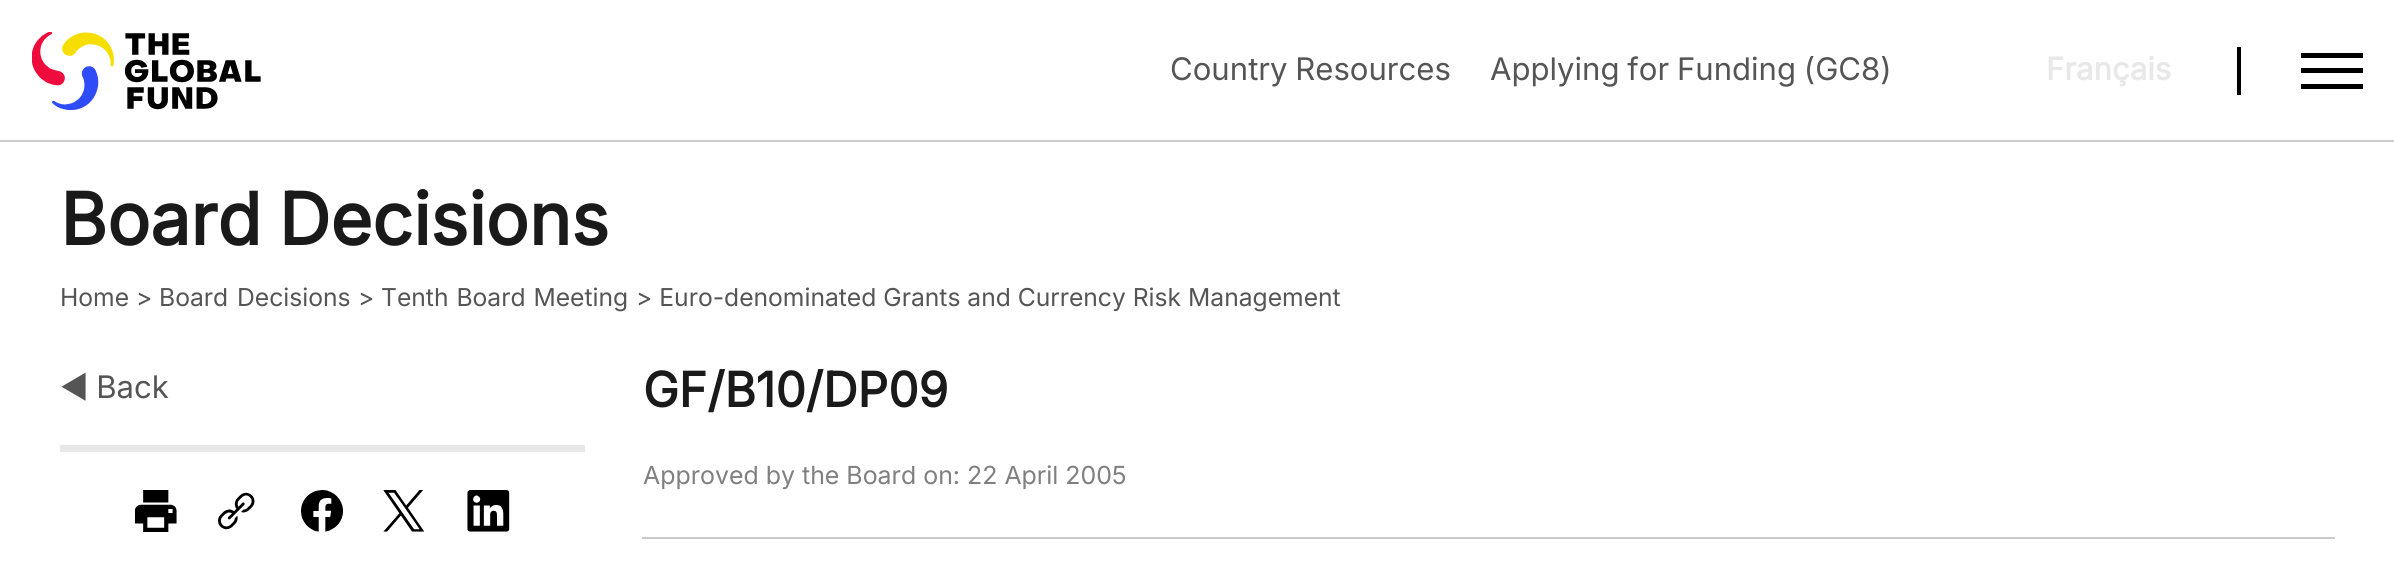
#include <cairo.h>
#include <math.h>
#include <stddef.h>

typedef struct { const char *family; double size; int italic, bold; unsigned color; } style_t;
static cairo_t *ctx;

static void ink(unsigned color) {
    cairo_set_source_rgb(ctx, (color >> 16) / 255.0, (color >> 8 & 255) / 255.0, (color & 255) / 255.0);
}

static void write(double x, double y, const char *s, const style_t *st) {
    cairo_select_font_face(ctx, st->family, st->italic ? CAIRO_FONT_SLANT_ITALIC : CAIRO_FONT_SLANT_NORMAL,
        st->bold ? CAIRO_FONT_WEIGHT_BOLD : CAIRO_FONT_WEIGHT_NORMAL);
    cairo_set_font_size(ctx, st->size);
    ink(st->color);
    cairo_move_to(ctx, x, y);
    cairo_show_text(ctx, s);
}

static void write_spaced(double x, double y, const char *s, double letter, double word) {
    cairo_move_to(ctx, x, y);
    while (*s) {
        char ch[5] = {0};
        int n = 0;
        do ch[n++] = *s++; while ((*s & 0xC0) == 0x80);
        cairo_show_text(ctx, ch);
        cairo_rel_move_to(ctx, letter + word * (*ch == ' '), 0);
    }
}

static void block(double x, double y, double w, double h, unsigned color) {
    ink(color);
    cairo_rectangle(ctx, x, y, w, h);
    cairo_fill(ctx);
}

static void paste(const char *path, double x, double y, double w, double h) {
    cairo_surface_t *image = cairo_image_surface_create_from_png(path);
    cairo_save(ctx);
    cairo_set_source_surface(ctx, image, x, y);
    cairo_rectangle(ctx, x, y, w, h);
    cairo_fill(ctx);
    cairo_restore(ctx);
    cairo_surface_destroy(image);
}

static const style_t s1 = {"Inter", 31.1, 0, 1, 0xe8e8e8};
static const style_t s2 = {"Inter", 24.65, 0, 0, 0x555555};
static const style_t s3 = {"Inter", 48, 0, 1, 0x1a1a1a};
static const style_t s4 = {"Inter", 24.9, 0, 0, 0x808080};

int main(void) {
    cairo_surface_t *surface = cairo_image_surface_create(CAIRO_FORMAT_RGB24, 2394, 562);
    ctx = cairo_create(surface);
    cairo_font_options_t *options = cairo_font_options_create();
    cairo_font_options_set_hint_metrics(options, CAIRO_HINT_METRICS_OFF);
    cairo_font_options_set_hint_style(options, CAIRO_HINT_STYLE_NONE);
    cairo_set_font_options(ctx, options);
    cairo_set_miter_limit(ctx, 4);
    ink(0xffffff);
    cairo_paint(ctx);
    block(0, 140, 2394, 2, 0xcccccc);
    paste("pic1.png", 32, 32, 229, 78);
    cairo_select_font_face(ctx, "Inter", CAIRO_FONT_SLANT_NORMAL, CAIRO_FONT_WEIGHT_NORMAL);
    cairo_set_font_size(ctx, 31.1);
    ink(0x555555);
    write_spaced(1170, 80, "Country Resources", 0, -1);
    write_spaced(1490, 80, "Applying for Funding (GC8)", 0, -1);
    block(2237, 47, 4, 48, 0x000000);
    write(2046, 80, "Français", &s1);
    block(2301, 53, 62, 5, 0x000000);
    block(2301, 68, 62, 5, 0x000000);
    block(2301, 84, 62, 5, 0x000000);
    cairo_set_font_size(ctx, 71.75);
    ink(0x1a1a1a);
    write_spaced(60, 245, "Board Decisions", 0, -3);
    write(60, 306, "Home", &s2);
    write(136, 306, ">", &s2);
    write_spaced(159, 306, "Board Decisions", 0, 2);
    write(358, 306, ">", &s2);
    write_spaced(381, 306, "Tenth Board Meeting", 0, 1);
    write(636, 306, "> Euro-denominated Grants and Currency Risk Management", &s2);
    cairo_set_font_size(ctx, 31.1);
    write_spaced(60, 398, "◀ Back", 0, -1);
    block(60, 445, 525, 7, 0xe8e8e8);
    paste("pic2.png", 135, 490, 42, 42);
    paste("pic3.png", 218, 492, 37, 38);
    paste("pic4.png", 301, 490, 42, 42);
    paste("pic5.png", 383, 490, 42, 42);
    paste("pic6.png", 467, 490, 43, 42);
    write(643, 407, "GF/B10/DP09", &s3);
    write(643, 484, "Approved by the Board on: 22 April 2005", &s4);
    block(642, 537, 1693, 2, 0xcacaca);
    cairo_surface_write_to_png(surface, "screenshot.png");
    cairo_font_options_destroy(options);
    cairo_destroy(ctx);
    cairo_surface_destroy(surface);
    return 0;
}
